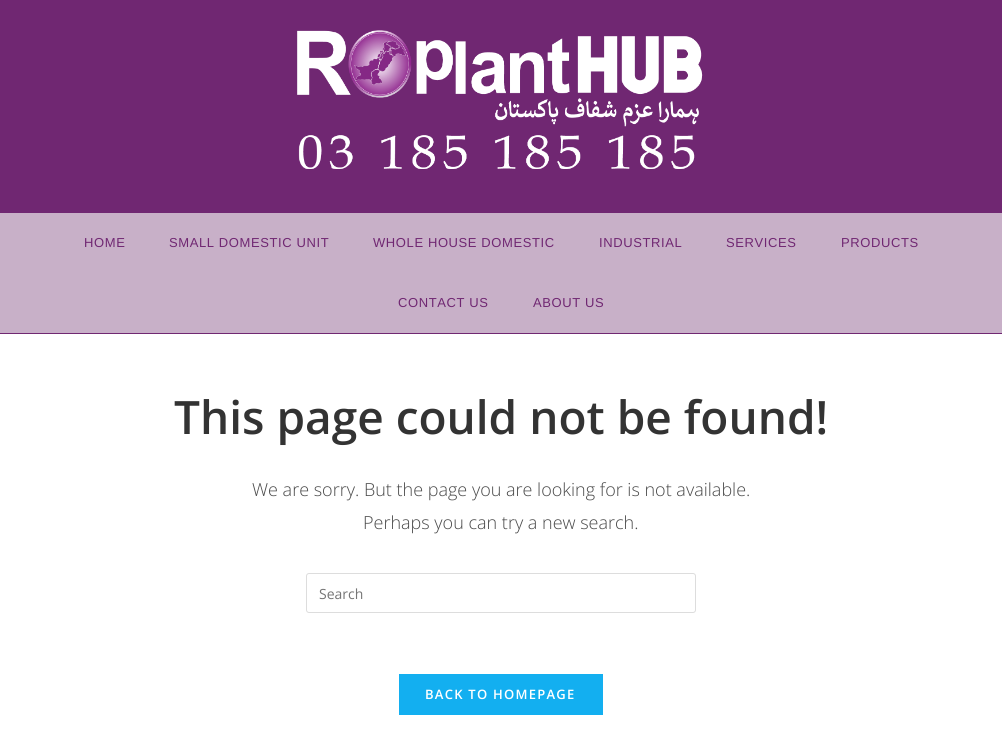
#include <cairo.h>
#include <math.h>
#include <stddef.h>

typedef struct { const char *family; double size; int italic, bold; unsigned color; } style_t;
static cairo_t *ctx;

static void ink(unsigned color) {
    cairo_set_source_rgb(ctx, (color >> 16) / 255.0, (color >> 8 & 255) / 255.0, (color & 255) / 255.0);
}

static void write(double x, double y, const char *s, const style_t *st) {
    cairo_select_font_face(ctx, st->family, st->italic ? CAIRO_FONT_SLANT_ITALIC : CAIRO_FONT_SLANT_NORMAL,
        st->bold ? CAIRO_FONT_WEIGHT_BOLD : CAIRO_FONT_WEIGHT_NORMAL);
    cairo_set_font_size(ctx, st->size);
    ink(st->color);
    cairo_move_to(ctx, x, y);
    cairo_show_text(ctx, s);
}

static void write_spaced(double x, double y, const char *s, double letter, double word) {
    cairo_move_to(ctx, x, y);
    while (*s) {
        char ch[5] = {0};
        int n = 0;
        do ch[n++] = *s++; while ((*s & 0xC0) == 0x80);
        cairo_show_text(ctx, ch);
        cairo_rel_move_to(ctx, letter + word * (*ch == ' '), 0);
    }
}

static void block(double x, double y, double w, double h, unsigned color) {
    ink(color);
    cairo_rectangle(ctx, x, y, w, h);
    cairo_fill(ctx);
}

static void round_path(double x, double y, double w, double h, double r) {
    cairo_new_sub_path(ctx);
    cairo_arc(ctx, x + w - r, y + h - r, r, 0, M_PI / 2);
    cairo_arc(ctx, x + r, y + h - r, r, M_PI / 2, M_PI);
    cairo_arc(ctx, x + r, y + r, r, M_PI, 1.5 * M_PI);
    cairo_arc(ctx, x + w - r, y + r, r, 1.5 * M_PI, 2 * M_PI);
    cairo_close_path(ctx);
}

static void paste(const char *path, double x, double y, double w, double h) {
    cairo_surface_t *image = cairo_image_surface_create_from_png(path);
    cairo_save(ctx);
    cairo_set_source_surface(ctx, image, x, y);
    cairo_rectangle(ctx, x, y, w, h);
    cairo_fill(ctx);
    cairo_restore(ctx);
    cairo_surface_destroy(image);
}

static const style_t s1 = {"Open Sans SemiBold", 46, 0, 0, 0x333333};
static const style_t s2 = {"Open Sans Light", 18, 0, 0, 0x4a4a4a};
static const style_t s3 = {"Open Sans", 14, 0, 0, 0x757575};

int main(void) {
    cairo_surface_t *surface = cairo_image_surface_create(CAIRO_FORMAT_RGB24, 1002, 747);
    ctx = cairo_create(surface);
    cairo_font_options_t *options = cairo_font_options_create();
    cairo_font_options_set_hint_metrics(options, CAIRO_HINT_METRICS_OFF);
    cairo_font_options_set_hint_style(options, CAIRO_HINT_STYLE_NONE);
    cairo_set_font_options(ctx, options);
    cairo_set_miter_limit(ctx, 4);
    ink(0xffffff);
    cairo_paint(ctx);
    block(0, 333, 1002, 1, 0x702772);
    block(0, 0, 1002, 213, 0x702772);
    paste("pic1.png", 297, 30, 406, 139);
    block(0, 213, 1002, 120, 0xc8b0c8);
    cairo_select_font_face(ctx, "Liberation Sans", CAIRO_FONT_SLANT_NORMAL, CAIRO_FONT_WEIGHT_NORMAL);
    cairo_set_font_size(ctx, 13);
    ink(0x702772);
    write_spaced(84, 247, "HOME", 0.6, 0);
    write_spaced(169, 247, "SMALL DOMESTIC UNIT", 0.6, 0);
    write_spaced(373, 247, "WHOLE HOUSE DOMESTIC", 0.6, 0);
    write_spaced(599, 247, "INDUSTRIAL", 0.6, 0);
    write_spaced(726, 247, "SERVICES", 0.6, 0);
    write_spaced(841, 247, "PRODUCTS", 0.6, 0);
    write_spaced(398, 307, "CONTACT US", 0.6, 0);
    write_spaced(533, 307, "ABOUT US", 0.6, 0);
    write(174, 434, "This page could not be found!", &s1);
    write(252, 496, "We are sorry. But the page you are looking for is not available.", &s2);
    write(363, 529, "Perhaps you can try a new search.", &s2);
    round_path(306.5, 573.5, 389, 39, 2.5);
    ink(0xdddddd);
    cairo_set_line_width(ctx, 1);
    cairo_stroke(ctx);
    write(319, 599, "Search", &s3);
    block(399, 674, 204, 41, 0x13aff0);
    cairo_select_font_face(ctx, "Open Sans SemiBold", CAIRO_FONT_SLANT_NORMAL, CAIRO_FONT_WEIGHT_NORMAL);
    cairo_set_font_size(ctx, 13);
    ink(0xffffff);
    write_spaced(425, 699, "BACK TO HOMEPAGE", 1.25, 0);
    cairo_surface_write_to_png(surface, "screenshot.png");
    cairo_font_options_destroy(options);
    cairo_destroy(ctx);
    cairo_surface_destroy(surface);
    return 0;
}
